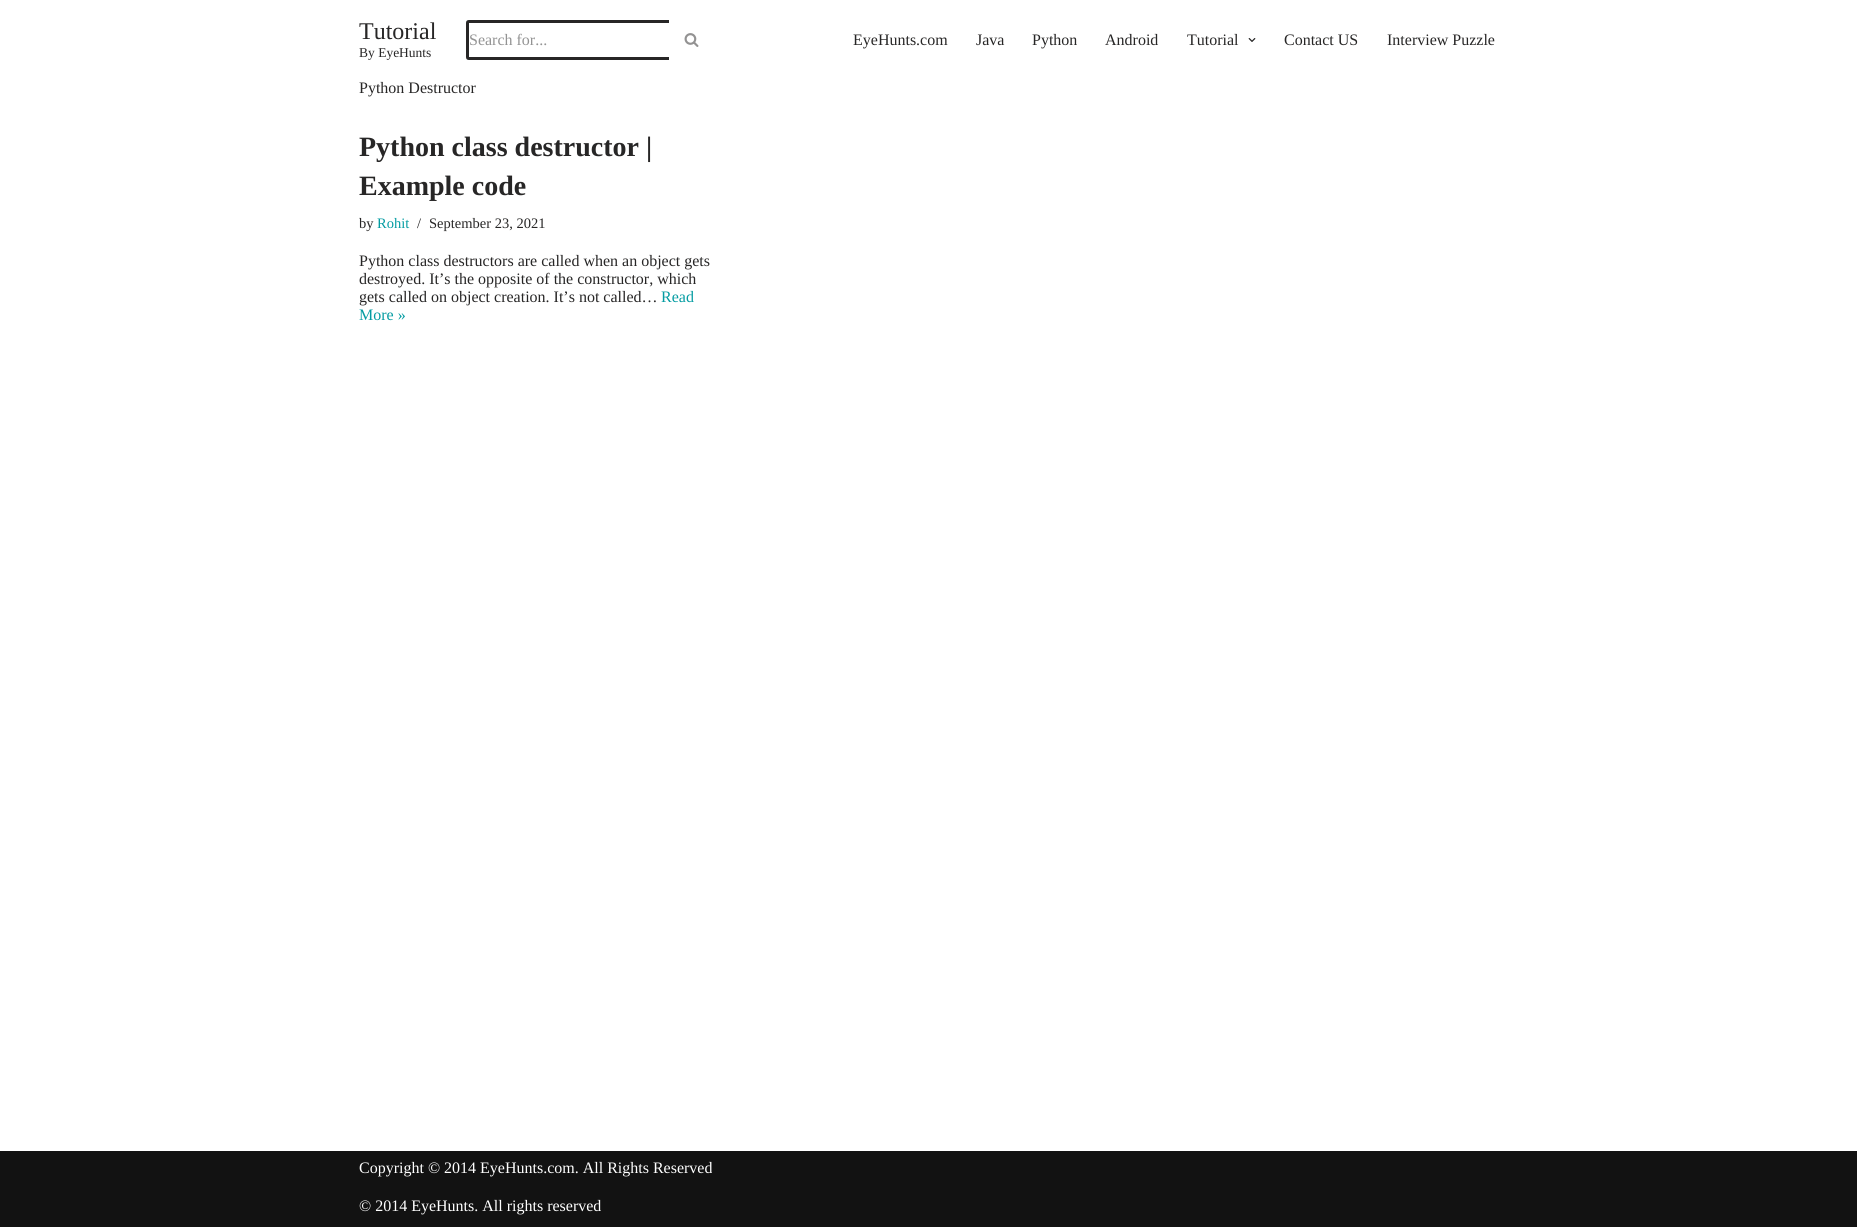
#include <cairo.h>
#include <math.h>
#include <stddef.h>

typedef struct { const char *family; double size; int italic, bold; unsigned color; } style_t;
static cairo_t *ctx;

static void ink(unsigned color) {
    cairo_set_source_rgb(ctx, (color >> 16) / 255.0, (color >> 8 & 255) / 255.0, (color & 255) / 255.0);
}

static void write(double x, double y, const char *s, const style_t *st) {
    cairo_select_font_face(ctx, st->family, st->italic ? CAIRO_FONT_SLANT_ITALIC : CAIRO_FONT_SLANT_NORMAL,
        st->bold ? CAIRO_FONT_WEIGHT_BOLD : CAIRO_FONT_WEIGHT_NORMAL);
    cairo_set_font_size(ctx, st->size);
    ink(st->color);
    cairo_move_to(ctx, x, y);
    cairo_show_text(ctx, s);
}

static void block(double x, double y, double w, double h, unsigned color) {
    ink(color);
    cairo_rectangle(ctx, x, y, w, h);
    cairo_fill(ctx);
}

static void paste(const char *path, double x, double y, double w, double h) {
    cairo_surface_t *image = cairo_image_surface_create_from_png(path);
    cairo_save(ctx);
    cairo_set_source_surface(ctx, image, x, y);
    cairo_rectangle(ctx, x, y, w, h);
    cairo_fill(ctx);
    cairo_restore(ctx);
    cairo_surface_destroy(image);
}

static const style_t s1 = {"Liberation Serif", 24, 0, 0, 0x272626};
static const style_t s2 = {"Liberation Serif", 13.5, 0, 0, 0x272626};
static const style_t s3 = {"Liberation Serif", 16, 0, 0, 0x939393};
static const style_t s4 = {"Liberation Serif", 16, 0, 0, 0x272626};
static const style_t s5 = {"Liberation Serif", 28, 0, 1, 0x272626};
static const style_t s6 = {"Liberation Serif", 14.5, 0, 0, 0x272626};
static const style_t s7 = {"Liberation Serif", 14.5, 0, 0, 0x049ca2};
static const style_t s8 = {"Liberation Serif", 16, 0, 0, 0x049ca2};
static const style_t s9 = {"Liberation Serif", 16, 0, 0, 0xffffff};

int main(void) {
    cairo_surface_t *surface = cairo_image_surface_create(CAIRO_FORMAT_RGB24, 1857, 1227);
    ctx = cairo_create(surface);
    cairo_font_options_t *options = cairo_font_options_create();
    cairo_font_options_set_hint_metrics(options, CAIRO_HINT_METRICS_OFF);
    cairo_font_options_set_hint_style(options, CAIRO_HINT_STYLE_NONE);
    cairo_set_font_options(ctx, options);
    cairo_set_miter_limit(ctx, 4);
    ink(0xffffff);
    cairo_paint(ctx);
    write(359, 39, "Tutorial", &s1);
    write(359, 57, "By EyeHunts", &s2);
    cairo_set_fill_rule(ctx, CAIRO_FILL_RULE_EVEN_ODD);
    cairo_new_path(ctx);
    cairo_move_to(ctx, 469, 20);
    cairo_line_to(ctx, 669, 20);
    cairo_line_to(ctx, 669, 60);
    cairo_line_to(ctx, 469, 60);
    cairo_curve_to(ctx, 467, 60, 466, 59, 466, 57);
    cairo_line_to(ctx, 466, 23);
    cairo_curve_to(ctx, 466, 21, 467, 20, 469, 20);
    cairo_close_path(ctx);
    cairo_move_to(ctx, 469, 23);
    cairo_line_to(ctx, 669, 23);
    cairo_line_to(ctx, 669, 57);
    cairo_line_to(ctx, 469, 57);
    cairo_close_path(ctx);
    cairo_fill(ctx);
    write(469, 45, "Search for...", &s3);
    paste("pic1.png", 684, 33, 15, 14);
    write(853, 45, "EyeHunts.com", &s4);
    write(976, 45, "Java", &s4);
    write(1032, 45, "Python", &s4);
    write(1105, 45, "Android", &s4);
    write(1187, 45, "Tutorial", &s4);
    paste("pic2.png", 1248, 38, 8, 4);
    write(1284, 45, "Contact US", &s4);
    write(1387, 45, "Interview Puzzle", &s4);
    write(359, 93, "Python Destructor", &s4);
    write(359, 156, "Python class destructor |", &s5);
    write(359, 195, "Example code", &s5);
    write(359, 228, "by", &s6);
    write(377, 228, "Rohit", &s7);
    write(417, 228, "/", &s6);
    write(429, 228, "September 23, 2021", &s6);
    write(359, 266, "Python class destructors are called when an object gets", &s4);
    write(359, 284, "destroyed. It’s the opposite of the constructor, which", &s4);
    write(359, 302, "gets called on object creation. It’s not called…", &s4);
    write(661, 302, "Read", &s8);
    write(359, 320, "More »", &s8);
    block(0, 1151, 1857, 76, 0x121212);
    write(359, 1173, "Copyright © 2014 EyeHunts.com. All Rights Reserved", &s9);
    write(359, 1211, "© 2014 EyeHunts. All rights reserved", &s9);
    cairo_surface_write_to_png(surface, "screenshot.png");
    cairo_font_options_destroy(options);
    cairo_destroy(ctx);
    cairo_surface_destroy(surface);
    return 0;
}
